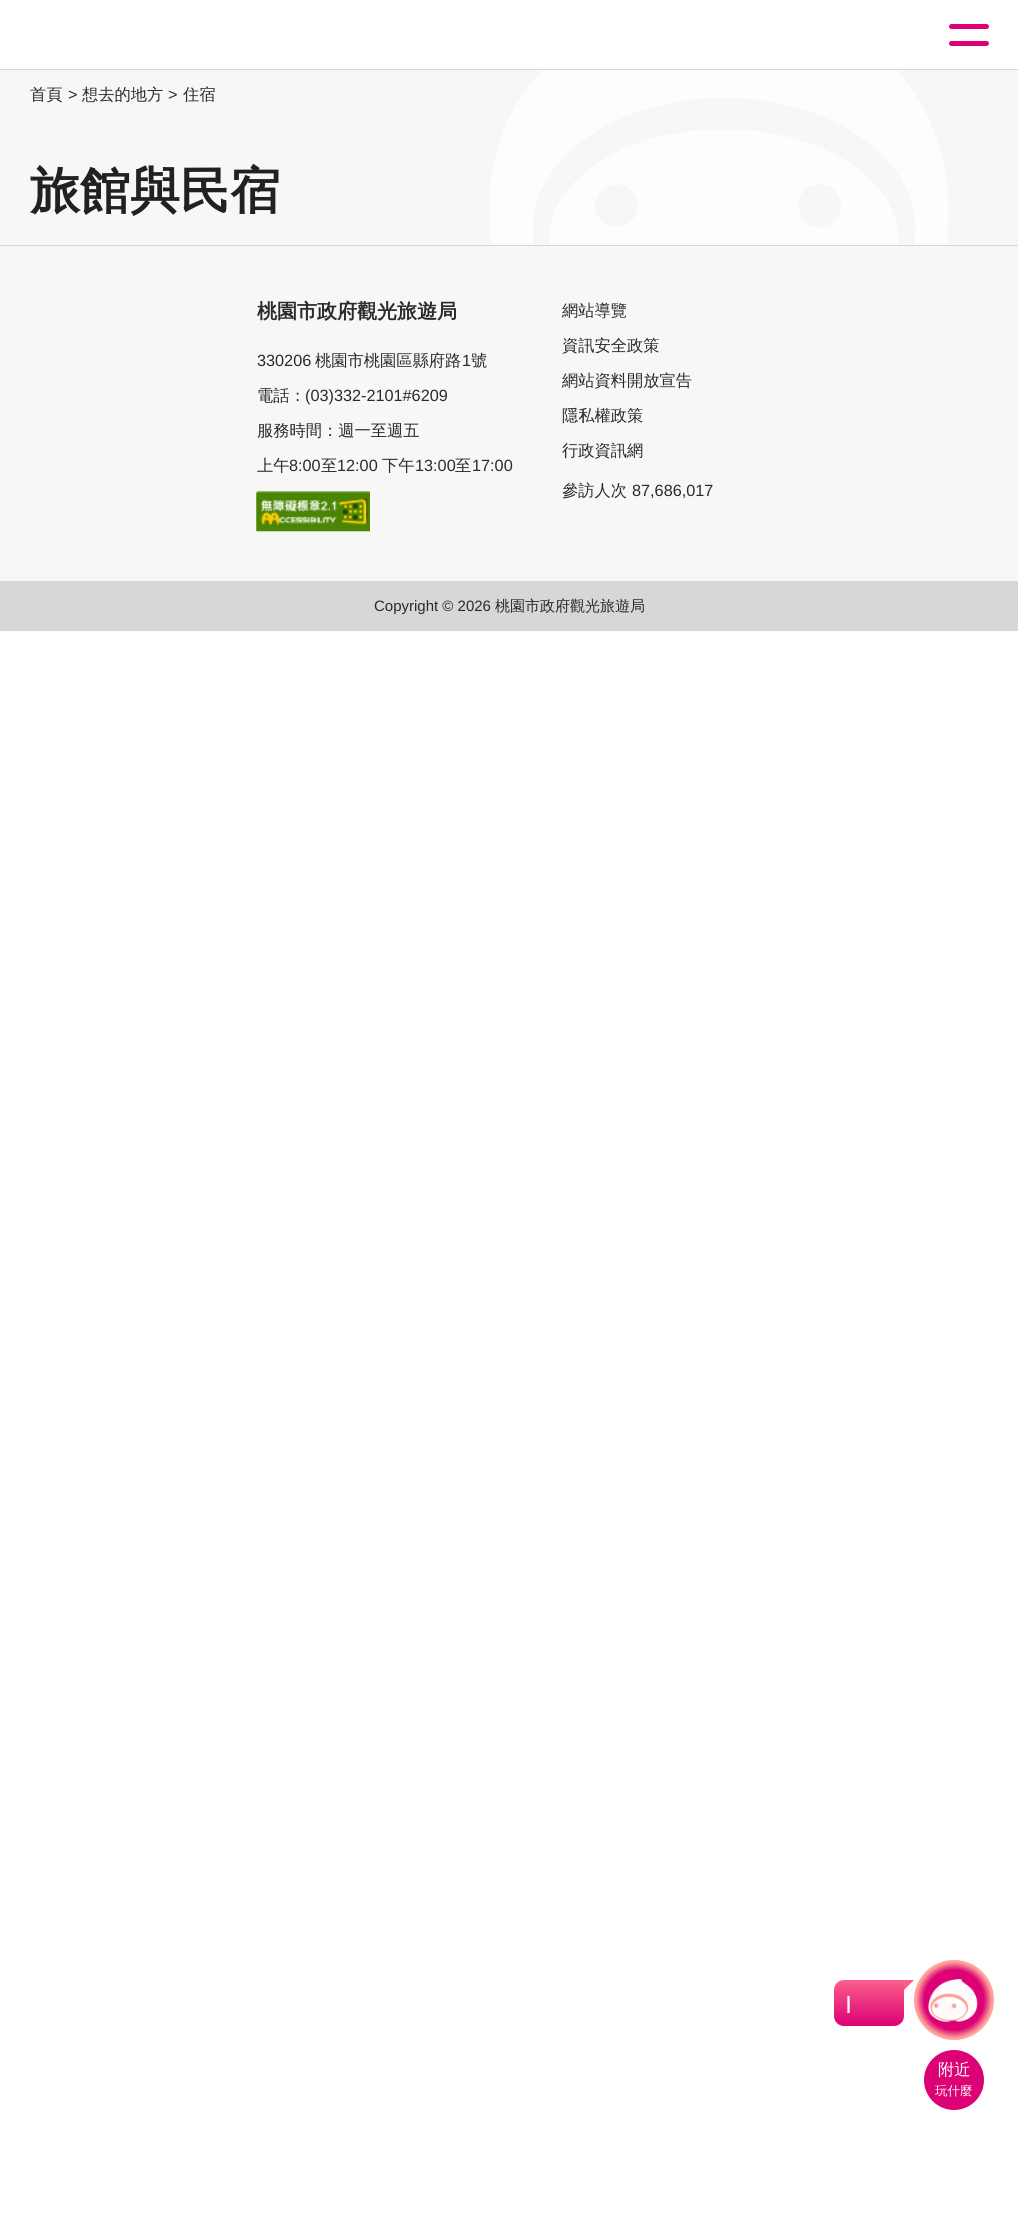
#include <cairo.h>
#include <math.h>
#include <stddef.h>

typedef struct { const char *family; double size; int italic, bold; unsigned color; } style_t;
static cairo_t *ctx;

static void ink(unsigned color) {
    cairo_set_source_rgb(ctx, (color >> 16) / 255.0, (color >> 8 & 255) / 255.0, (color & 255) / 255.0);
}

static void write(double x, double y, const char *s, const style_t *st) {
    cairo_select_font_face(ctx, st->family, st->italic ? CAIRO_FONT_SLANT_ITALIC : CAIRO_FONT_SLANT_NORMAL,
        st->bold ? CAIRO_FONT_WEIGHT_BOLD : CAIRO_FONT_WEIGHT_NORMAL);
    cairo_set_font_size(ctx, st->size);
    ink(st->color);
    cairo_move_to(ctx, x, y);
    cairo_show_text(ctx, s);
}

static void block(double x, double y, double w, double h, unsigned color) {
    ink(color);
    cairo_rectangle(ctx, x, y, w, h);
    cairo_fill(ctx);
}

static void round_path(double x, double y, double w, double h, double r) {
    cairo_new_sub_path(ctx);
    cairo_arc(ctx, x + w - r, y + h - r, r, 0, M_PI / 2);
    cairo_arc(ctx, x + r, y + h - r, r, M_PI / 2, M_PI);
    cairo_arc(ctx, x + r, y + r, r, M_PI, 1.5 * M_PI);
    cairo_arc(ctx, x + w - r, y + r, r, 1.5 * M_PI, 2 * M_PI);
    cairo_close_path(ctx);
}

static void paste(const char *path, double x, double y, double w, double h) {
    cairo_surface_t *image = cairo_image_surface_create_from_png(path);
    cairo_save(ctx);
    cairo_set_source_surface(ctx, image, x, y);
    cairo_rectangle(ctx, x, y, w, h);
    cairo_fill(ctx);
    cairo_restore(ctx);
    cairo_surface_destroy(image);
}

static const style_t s1 = {"WenQuanYi Zen Hei Medium", 16.25, 0, 0, 0x2a2a2a};
static const style_t s2 = {"Liberation Sans", 16.25, 0, 0, 0x2a2a2a};
static const style_t s3 = {"WenQuanYi Zen Hei", 50, 0, 1, 0x212121};
static const style_t s4 = {"WenQuanYi Zen Hei", 20, 0, 1, 0x2a2a2a};
static const style_t s5 = {"Liberation Sans", 15, 0, 0, 0x2a2a2a};
static const style_t s6 = {"WenQuanYi Zen Hei Medium", 15, 0, 0, 0x2a2a2a};
static const style_t s7 = {"Liberation Sans", 18, 0, 1, 0xffffff};
static const style_t s8 = {"WenQuanYi Zen Hei Medium", 16.25, 0, 0, 0xffffff};
static const style_t s9 = {"WenQuanYi Zen Hei Medium", 12.5, 0, 0, 0xffffff};

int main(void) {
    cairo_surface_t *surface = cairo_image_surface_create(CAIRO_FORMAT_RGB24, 1018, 2229);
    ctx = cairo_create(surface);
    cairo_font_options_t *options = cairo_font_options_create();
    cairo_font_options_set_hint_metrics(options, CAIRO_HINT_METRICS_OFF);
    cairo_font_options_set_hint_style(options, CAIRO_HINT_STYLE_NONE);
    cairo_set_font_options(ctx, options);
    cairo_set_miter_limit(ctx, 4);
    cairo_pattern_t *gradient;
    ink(0xffffff);
    cairo_paint(ctx);
    ink(0xdc0175);
    round_path(949, 24, 40, 5, 2.5);
    cairo_fill(ctx);
    round_path(949, 41, 40, 5, 2.5);
    cairo_fill(ctx);
    block(0, 69, 1018, 1, 0xd7d7d7);
    block(0, 70, 1018, 175, 0xf7f7f7);
    write(30, 100, "首頁", &s1);
    write(68, 100, ">", &s2);
    write(82, 100, "想去的地方", &s1);
    write(168, 100, ">", &s2);
    write(183, 100, "住宿", &s1);
    paste("pic1.png", 489, 70, 460, 175);
    write(30, 208, "旅館與民宿", &s3);
    block(0, 246, 1018, 335, 0xf7f7f7);
    block(0, 245, 1018, 1, 0xd7d7d7);
    write(257, 318, "桃園市政府觀光旅遊局", &s4);
    write(257, 366, "330206", &s2);
    write(315, 366, "桃園市桃園區縣府路", &s1);
    write(462, 366, "1", &s2);
    write(471, 366, "號", &s1);
    write(257, 401, "電話：", &s1);
    write(305, 401, "(03)332-2101#6209", &s2);
    write(257, 436, "服務時間：週一至週五", &s1);
    write(257, 471, "上午", &s1);
    write(289, 471, "8:00", &s2);
    write(321, 471, "至", &s1);
    write(337, 471, "12:00", &s2);
    write(382, 471, "下午", &s1);
    write(415, 471, "13:00", &s2);
    write(455, 471, "至", &s1);
    write(472, 471, "17:00", &s2);
    paste("pic2.png", 256, 491, 114, 41);
    write(562, 316, "網站導覽", &s1);
    write(562, 351, "資訊安全政策", &s1);
    write(562, 386, "網站資料開放宣告", &s1);
    write(562, 421, "隱私權政策", &s1);
    write(562, 456, "行政資訊網", &s1);
    write(562, 496, "參訪人次", &s1);
    write(632, 496, "87,686,017", &s2);
    block(0, 581, 1018, 50, 0xd7d7d7);
    write(374, 611, "Copyright © 2026", &s5);
    write(495, 611, "桃園市政府觀光旅遊局", &s6);
    ink(0xfc5e8a);
    cairo_new_path(ctx);
    cairo_move_to(ctx, 914, 1980);
    cairo_line_to(ctx, 904, 1980);
    cairo_line_to(ctx, 904, 1990);
    cairo_close_path(ctx);
    cairo_fill(ctx);
    gradient = cairo_pattern_create_linear(869, 1980, 869, 2026);
    cairo_pattern_add_color_stop_rgba(gradient, 0, 0.988, 0.369, 0.541, 1);
    cairo_pattern_add_color_stop_rgba(gradient, 1, 0.863, 0.004, 0.459, 1);
    cairo_set_source(ctx, gradient);
    cairo_pattern_destroy(gradient);
    cairo_new_path(ctx);
    cairo_move_to(ctx, 844, 1980);
    cairo_line_to(ctx, 904, 1980);
    cairo_line_to(ctx, 904, 2016);
    cairo_curve_to(ctx, 904, 2021.5, 899.5, 2026, 894, 2026);
    cairo_line_to(ctx, 844, 2026);
    cairo_curve_to(ctx, 838.5, 2026, 834, 2021.5, 834, 2016);
    cairo_line_to(ctx, 834, 1990);
    cairo_curve_to(ctx, 834, 1984.5, 838.5, 1980, 844, 1980);
    cairo_close_path(ctx);
    cairo_fill(ctx);
    write(846, 2009, "|", &s7);
    gradient = cairo_pattern_create_radial(954, 2000, 0, 954, 2000, 40);
    cairo_pattern_add_color_stop_rgba(gradient, 0.75, 0.863, 0.004, 0.459, 1);
    cairo_pattern_add_color_stop_rgba(gradient, 0.95, 0.996, 0.635, 0.604, 1);
    cairo_set_source(ctx, gradient);
    cairo_pattern_destroy(gradient);
    cairo_new_path(ctx);
    cairo_arc(ctx, 954, 2000, 40, 0, 2 * M_PI);
    cairo_fill(ctx);
    paste("pic3.png", 928, 1978, 50, 44);
    ink(0xdc0175);
    cairo_arc(ctx, 954, 2080, 30, 0, 2 * M_PI);
    cairo_fill(ctx);
    write(938, 2075, "附近", &s8);
    write(935, 2095, "玩什麼", &s9);
    cairo_surface_write_to_png(surface, "screenshot.png");
    cairo_font_options_destroy(options);
    cairo_destroy(ctx);
    cairo_surface_destroy(surface);
    return 0;
}
